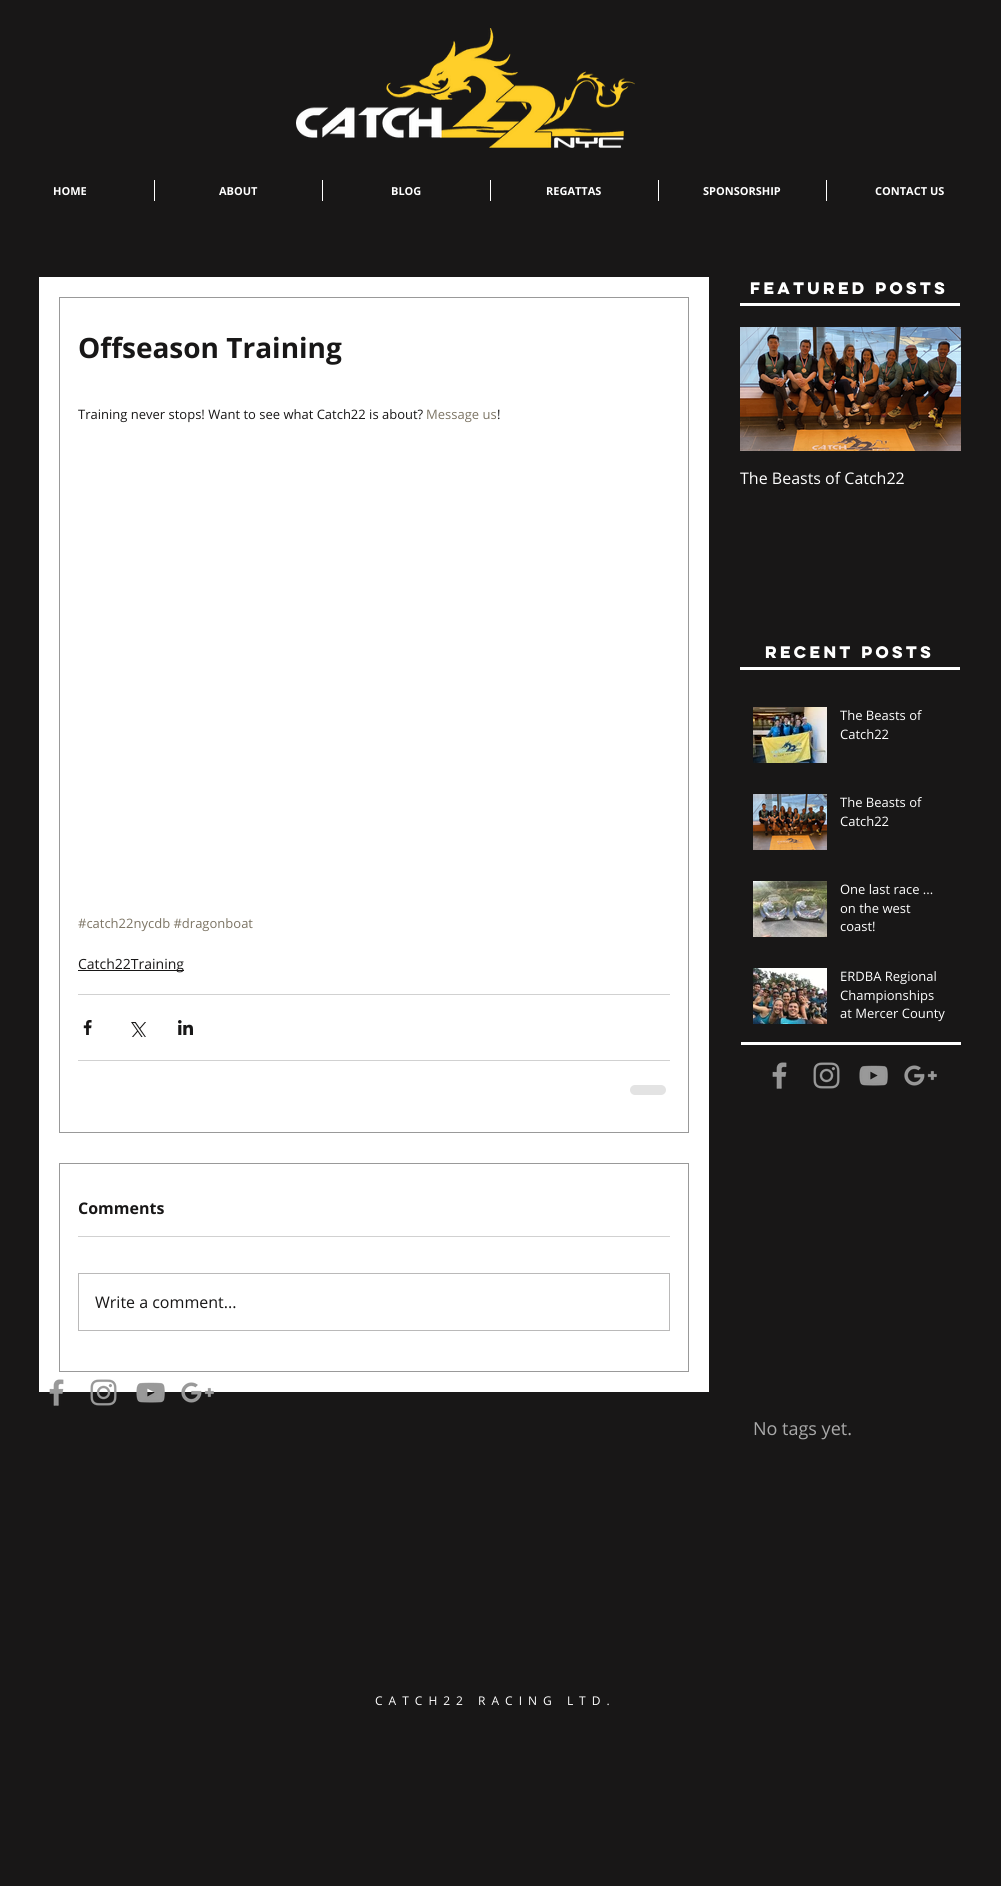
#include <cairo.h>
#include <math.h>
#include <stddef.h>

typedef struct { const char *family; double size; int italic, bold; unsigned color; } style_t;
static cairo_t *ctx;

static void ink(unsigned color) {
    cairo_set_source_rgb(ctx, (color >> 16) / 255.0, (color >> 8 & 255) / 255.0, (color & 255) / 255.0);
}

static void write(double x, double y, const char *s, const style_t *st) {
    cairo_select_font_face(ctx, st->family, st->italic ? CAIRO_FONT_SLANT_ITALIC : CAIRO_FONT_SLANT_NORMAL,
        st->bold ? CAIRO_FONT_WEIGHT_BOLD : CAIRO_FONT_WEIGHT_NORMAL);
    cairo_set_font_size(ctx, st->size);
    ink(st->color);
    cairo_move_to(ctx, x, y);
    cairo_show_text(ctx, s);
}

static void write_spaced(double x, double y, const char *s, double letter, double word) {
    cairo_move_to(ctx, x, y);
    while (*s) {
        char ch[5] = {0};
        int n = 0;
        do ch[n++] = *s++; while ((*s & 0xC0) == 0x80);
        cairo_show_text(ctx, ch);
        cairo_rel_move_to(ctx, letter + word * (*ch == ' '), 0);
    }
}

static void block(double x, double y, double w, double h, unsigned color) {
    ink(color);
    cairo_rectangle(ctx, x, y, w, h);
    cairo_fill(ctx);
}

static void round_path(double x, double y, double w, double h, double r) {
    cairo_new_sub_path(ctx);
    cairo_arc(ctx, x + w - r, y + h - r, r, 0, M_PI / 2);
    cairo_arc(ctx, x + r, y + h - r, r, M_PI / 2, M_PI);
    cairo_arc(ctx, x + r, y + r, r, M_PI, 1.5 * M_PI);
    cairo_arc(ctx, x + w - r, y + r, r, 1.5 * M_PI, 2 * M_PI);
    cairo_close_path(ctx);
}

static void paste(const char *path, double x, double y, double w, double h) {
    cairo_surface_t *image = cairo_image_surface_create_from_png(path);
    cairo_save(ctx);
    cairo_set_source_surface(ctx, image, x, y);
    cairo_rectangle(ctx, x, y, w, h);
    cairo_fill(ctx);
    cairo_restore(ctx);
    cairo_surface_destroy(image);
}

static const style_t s1 = {"Open Sans", 11, 0, 1, 0xffffff};
static const style_t s2 = {"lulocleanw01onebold", 15, 0, 1, 0xffffff};
static const style_t s3 = {"Open Sans", 28, 0, 1, 0x181717};
static const style_t s4 = {"Open Sans", 13, 0, 0, 0x181717};
static const style_t s5 = {"Open Sans", 13, 0, 0, 0x7c7464};
static const style_t s6 = {"Open Sans", 14, 0, 0, 0x181717};
static const style_t s7 = {"Open Sans", 16, 0, 1, 0x181717};
static const style_t s8 = {"Open Sans", 16, 0, 0, 0x181717};
static const style_t s9 = {"Open Sans", 16, 0, 0, 0xffffff};
static const style_t s10 = {"Open Sans", 13, 0, 0, 0xffffff};
static const style_t s11 = {"Open Sans", 18, 0, 0, 0xa9a9a9};

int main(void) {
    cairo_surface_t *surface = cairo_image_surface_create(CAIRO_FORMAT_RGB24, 1001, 1886);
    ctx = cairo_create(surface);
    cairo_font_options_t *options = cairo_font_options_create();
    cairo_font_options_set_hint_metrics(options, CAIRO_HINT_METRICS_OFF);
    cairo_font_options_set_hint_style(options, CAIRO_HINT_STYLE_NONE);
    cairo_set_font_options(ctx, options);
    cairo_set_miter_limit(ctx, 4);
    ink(0x181717);
    cairo_paint(ctx);
    paste("pic1.png", 296, 28, 339, 120);
    write(53, 195, "HOME", &s1);
    block(154, 180, 1, 21, 0xffffff);
    write(219, 195, "ABOUT", &s1);
    block(322, 180, 1, 21, 0xffffff);
    write(391, 195, "BLOG", &s1);
    block(490, 180, 1, 21, 0xffffff);
    write(546, 195, "REGATTAS", &s1);
    block(658, 180, 1, 21, 0xffffff);
    write(703, 195, "SPONSORSHIP", &s1);
    block(826, 180, 1, 21, 0xffffff);
    write(875, 195, "CONTACT US", &s1);
    write(750, 294, "Featured Posts", &s2);
    block(740, 303, 220, 3, 0xffffff);
    block(39, 277, 670, 1115, 0xffffff);
    cairo_rectangle(ctx, 59.5, 297.5, 629, 835);
    ink(0x999999);
    cairo_set_line_width(ctx, 1);
    cairo_stroke(ctx);
    write(78, 358, "Offseason Training", &s3);
    write(78, 419, "Training never stops! Want to see what Catch22 is about?", &s4);
    write(426, 419, "Message us", &s5);
    write(497, 419, "!", &s4);
    write(78, 928, "#catch22nycdb #dragonboat", &s5);
    block(78, 970, 106, 1, 0x181717);
    write(78, 969, "Catch22Training", &s6);
    block(78, 994, 592, 1, 0xd1d1d1);
    paste("pic2.png", 83, 1020, 9, 15);
    paste("pic3.png", 131, 1022, 15, 15);
    paste("pic4.png", 178, 1020, 15, 15);
    block(78, 1060, 592, 1, 0xd1d1d1);
    ink(0xe3e3e3);
    round_path(630, 1085, 36, 10, 5);
    cairo_fill(ctx);
    cairo_rectangle(ctx, 59.5, 1163.5, 629, 208);
    ink(0x999999);
    cairo_stroke(ctx);
    write(78, 1214, "Comments", &s7);
    block(78, 1236, 592, 1, 0xd1d1d1);
    cairo_rectangle(ctx, 78.5, 1273.5, 591, 57);
    ink(0xbab9b9);
    cairo_stroke(ctx);
    write(95, 1308, "Write a comment...", &s8);
    paste("pic6.png", 740, 327, 221, 124);
    paste("pic5.png", 920, 374, 17, 29);
    write(740, 484, "The Beasts of Catch22", &s9);
    write(765, 658, "Recent Posts", &s2);
    block(740, 667, 220, 3, 0xffffff);
    paste("pic7.png", 753, 707, 74, 56);
    write(840, 720, "The Beasts of", &s10);
    write(840, 739, "Catch22", &s10);
    paste("pic8.png", 753, 794, 74, 56);
    write(840, 807, "The Beasts of", &s10);
    write(840, 826, "Catch22", &s10);
    paste("pic9.png", 753, 881, 74, 56);
    write(840, 894, "One last race ...", &s10);
    write(840, 913, "on the west", &s10);
    write(840, 931, "coast!", &s10);
    paste("pic10.png", 753, 968, 74, 56);
    write(840, 981, "ERDBA Regional", &s10);
    write(840, 1000, "Championships", &s10);
    write(840, 1018, "at Mercer County", &s10);
    block(741, 1042, 220, 3, 0xffffff);
    paste("pic11.png", 772, 1062, 15, 27);
    paste("pic12.png", 813, 1062, 27, 27);
    paste("pic13.png", 859, 1065, 29, 21);
    paste("pic14.png", 904, 1065, 33, 21);
    paste("pic15.png", 49, 1379, 15, 27);
    paste("pic16.png", 90, 1379, 27, 27);
    paste("pic17.png", 136, 1382, 29, 21);
    paste("pic18.png", 181, 1382, 33, 21);
    write(753, 1435, "No tags yet.", &s11);
    cairo_set_font_size(ctx, 12);
    ink(0xffffff);
    write_spaced(375, 1705, "CATCH22 RACING LTD.", 6, 0);
    cairo_surface_write_to_png(surface, "screenshot.png");
    cairo_font_options_destroy(options);
    cairo_destroy(ctx);
    cairo_surface_destroy(surface);
    return 0;
}
